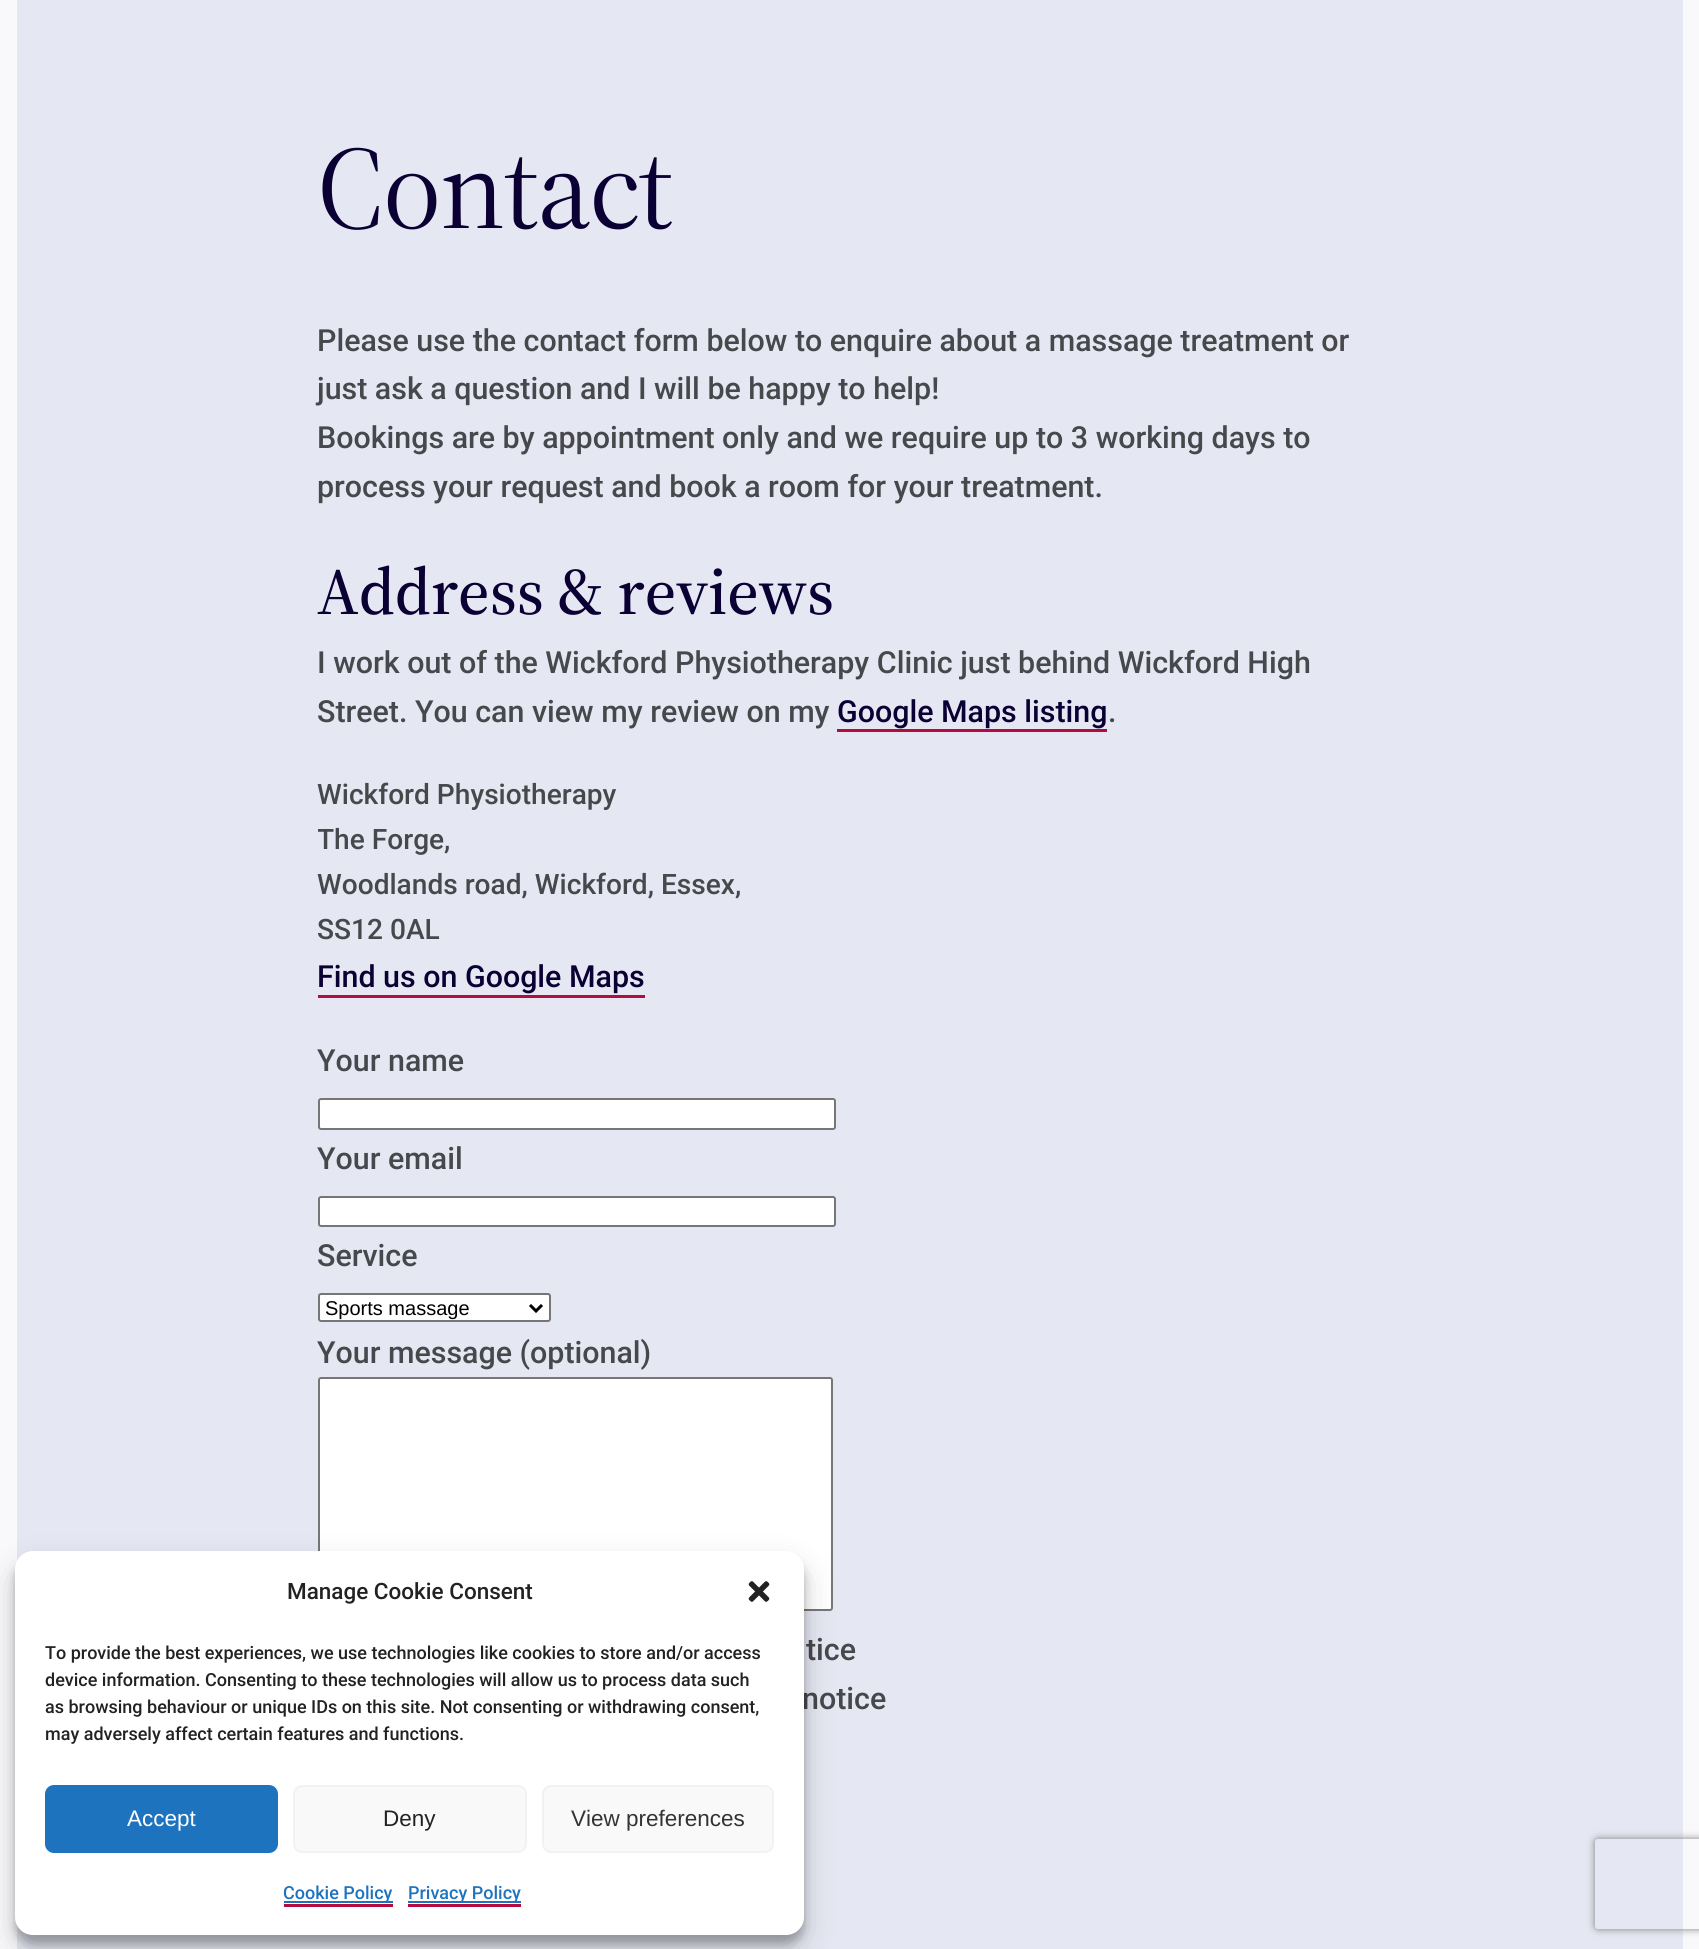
#include <cairo.h>
#include <math.h>
#include <stddef.h>

typedef struct { const char *family; double size; int italic, bold; unsigned color; } style_t;
static cairo_t *ctx;

static void ink(unsigned color) {
    cairo_set_source_rgb(ctx, (color >> 16) / 255.0, (color >> 8 & 255) / 255.0, (color & 255) / 255.0);
}

static void write(double x, double y, const char *s, const style_t *st) {
    cairo_select_font_face(ctx, st->family, st->italic ? CAIRO_FONT_SLANT_ITALIC : CAIRO_FONT_SLANT_NORMAL,
        st->bold ? CAIRO_FONT_WEIGHT_BOLD : CAIRO_FONT_WEIGHT_NORMAL);
    cairo_set_font_size(ctx, st->size);
    ink(st->color);
    cairo_move_to(ctx, x, y);
    cairo_show_text(ctx, s);
}

static void write_spaced(double x, double y, const char *s, double letter, double word) {
    cairo_move_to(ctx, x, y);
    while (*s) {
        char ch[5] = {0};
        int n = 0;
        do ch[n++] = *s++; while ((*s & 0xC0) == 0x80);
        cairo_show_text(ctx, ch);
        cairo_rel_move_to(ctx, letter + word * (*ch == ' '), 0);
    }
}

static void block(double x, double y, double w, double h, unsigned color) {
    ink(color);
    cairo_rectangle(ctx, x, y, w, h);
    cairo_fill(ctx);
}

static void round_path(double x, double y, double w, double h, double r) {
    cairo_new_sub_path(ctx);
    cairo_arc(ctx, x + w - r, y + h - r, r, 0, M_PI / 2);
    cairo_arc(ctx, x + r, y + h - r, r, M_PI / 2, M_PI);
    cairo_arc(ctx, x + r, y + r, r, M_PI, 1.5 * M_PI);
    cairo_arc(ctx, x + w - r, y + r, r, 1.5 * M_PI, 2 * M_PI);
    cairo_close_path(ctx);
}

static void blur_box(double x, double y, double w, double h, double r, double blur, double alpha) {
    cairo_push_group_with_content(ctx, CAIRO_CONTENT_ALPHA);
    cairo_set_operator(ctx, CAIRO_OPERATOR_SOURCE);
    for (int i = 15; i >= -15 && fmin(w, h) + blur * i / 3 > 0; i -= 2) {
        double e = blur * i / 6;
        cairo_set_source_rgba(ctx, 0, 0, 0, alpha * erfc((i - 1) / 8.5) / 2);
        round_path(x - e, y - e, w + 2 * e, h + 2 * e, fmax(0, fmin(r + e + blur * .6, fmin(w, h) / 2 + e)));
        cairo_fill(ctx);
    }
    cairo_pattern_t *soft = cairo_pop_group(ctx);
    cairo_mask(ctx, soft);
    cairo_pattern_destroy(soft);
}

static void paste(const char *path, double x, double y, double w, double h) {
    cairo_surface_t *image = cairo_image_surface_create_from_png(path);
    cairo_save(ctx);
    cairo_set_source_surface(ctx, image, x, y);
    cairo_rectangle(ctx, x, y, w, h);
    cairo_fill(ctx);
    cairo_restore(ctx);
    cairo_surface_destroy(image);
}

static const style_t s1 = {"Roboto Medium", 30.4, 0, 0, 0x47484b};
static const style_t s2 = {"Source Serif 4 Medium", 65.75, 0, 0, 0x0b0033};
static const style_t s3 = {"Roboto Medium", 30.4, 0, 0, 0x0b0033};
static const style_t s4 = {"Roboto Medium", 28.1, 0, 0, 0x47484b};
static const style_t s5 = {"Liberation Sans", 20, 0, 0, 0x000000};
static const style_t s6 = {"Roboto Medium", 22.5, 0, 0, 0x222222};
static const style_t s7 = {"Roboto Medium", 18, 0, 0, 0x222222};
static const style_t s8 = {"Liberation Sans", 22.5, 0, 0, 0xffffff};
static const style_t s9 = {"Liberation Sans", 22.5, 0, 0, 0x222222};
static const style_t s10 = {"Liberation Sans", 22.5, 0, 0, 0x333333};
static const style_t s11 = {"Roboto Medium", 18, 0, 0, 0x1e73be};

int main(void) {
    cairo_surface_t *surface = cairo_image_surface_create(CAIRO_FORMAT_RGB24, 1699, 1949);
    ctx = cairo_create(surface);
    cairo_font_options_t *options = cairo_font_options_create();
    cairo_font_options_set_hint_metrics(options, CAIRO_HINT_METRICS_OFF);
    cairo_font_options_set_hint_style(options, CAIRO_HINT_STYLE_NONE);
    cairo_set_font_options(ctx, options);
    cairo_set_miter_limit(ctx, 4);
    ink(0xe5e7f2);
    cairo_paint(ctx);
    cairo_rectangle(ctx, 8.5, -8.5, 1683, 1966);
    ink(0xf9f9fb);
    cairo_set_line_width(ctx, 17);
    cairo_stroke(ctx);
    cairo_select_font_face(ctx, "Source Serif 4", CAIRO_FONT_SLANT_NORMAL, CAIRO_FONT_WEIGHT_NORMAL);
    cairo_set_font_size(ctx, 117);
    ink(0x0b0033);
    write_spaced(317, 228, "Contact", -1.25, 0);
    write(317, 351, "Please use the contact form below to enquire about a massage treatment or", &s1);
    write(317, 399, "just ask a question and I will be happy to help!", &s1);
    write(317, 448, "Bookings are by appointment only and we require up to 3 working days to", &s1);
    write(317, 497, "process your request and book a room for your treatment.", &s1);
    write(317, 614, "Address & reviews", &s2);
    write(317, 673, "I work out of the Wickford Physiotherapy Clinic just behind Wickford High", &s1);
    write(317, 722, "Street. You can view my review on my", &s1);
    write(837, 722, "Google Maps listing", &s3);
    block(837, 729, 270, 3, 0xb50b3e);
    write(1108, 722, ".", &s1);
    write(317, 804, "Wickford Physiotherapy", &s4);
    cairo_save(ctx);
    cairo_rectangle(ctx, 318, 773, 1065, 180);
    cairo_clip(ctx);
    write(317, 849, "The Forge,", &s4);
    cairo_restore(ctx);
    write(317, 894, "Woodlands road, Wickford, Essex,", &s4);
    write(317, 939, "SS12 0AL", &s4);
    write(317, 987, "Find us on Google Maps", &s3);
    block(318, 995, 327, 3, 0xb50b3e);
    write(317, 1071, "Your name", &s1);
    ink(0xffffff);
    round_path(319, 1099, 516, 30, 2);
    cairo_fill_preserve(ctx);
    ink(0x767676);
    cairo_set_line_width(ctx, 2);
    cairo_stroke(ctx);
    write(317, 1169, "Your email", &s1);
    ink(0xffffff);
    round_path(319, 1197, 516, 29, 2);
    cairo_fill_preserve(ctx);
    ink(0x767676);
    cairo_stroke(ctx);
    write(317, 1266, "Service", &s1);
    ink(0xffffff);
    round_path(319, 1294, 231, 27, 2);
    cairo_fill_preserve(ctx);
    ink(0x767676);
    cairo_stroke(ctx);
    cairo_new_path(ctx);
    cairo_move_to(ctx, 530, 1305);
    cairo_line_to(ctx, 536, 1311);
    cairo_line_to(ctx, 542, 1305);
    ink(0x000000);
    cairo_set_line_width(ctx, 3);
    cairo_stroke(ctx);
    write(325, 1315, "Sports massage", &s5);
    write(317, 1363, "Your message (optional)", &s1);
    ink(0xffffff);
    round_path(319, 1378, 513, 232, 2);
    cairo_fill_preserve(ctx);
    ink(0x767676);
    cairo_set_line_width(ctx, 2);
    cairo_stroke(ctx);
    write(806, 1660, "tice", &s1);
    write(802, 1709, "notice", &s1);
    ink(0x000000);
    blur_box(15, 1560, 789, 384, 18, 4.5, 0.23);
    blur_box(15, 1566, 789, 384, 18, 15, 0.19);
    ink(0xffffff);
    round_path(15, 1551, 789, 384, 18);
    cairo_fill(ctx);
    write(287, 1599, "Manage Cookie Consent", &s6);
    paste("pic1.png", 748, 1581, 22, 21);
    write(45, 1659, "To provide the best experiences, we use technologies like cookies to store and/or access", &s7);
    write(45, 1686, "device information. Consenting to these technologies will allow us to process data such", &s7);
    write(45, 1713, "as browsing behaviour or unique IDs on this site. Not consenting or withdrawing consent,", &s7);
    write(45, 1740, "may adversely affect certain features and functions.", &s7);
    ink(0x1e73be);
    round_path(46, 1786, 231, 66, 8);
    cairo_fill_preserve(ctx);
    cairo_stroke(ctx);
    write(127, 1826, "Accept", &s8);
    ink(0xf9f9f9);
    round_path(294, 1786, 232, 66, 8);
    cairo_fill_preserve(ctx);
    ink(0xf2f2f2);
    cairo_stroke(ctx);
    write(383, 1826, "Deny", &s9);
    ink(0xf9f9f9);
    round_path(543, 1786, 230, 66, 8);
    cairo_fill_preserve(ctx);
    ink(0xf2f2f2);
    cairo_stroke(ctx);
    write(571, 1826, "View preferences", &s10);
    block(284, 1901, 109, 2, 0x1e73be);
    write(283, 1899, "Cookie Policy", &s11);
    block(284, 1904, 109, 3, 0xb50b3e);
    block(408, 1901, 113, 2, 0x1e73be);
    write(408, 1899, "Privacy Policy", &s11);
    block(408, 1904, 113, 3, 0xb50b3e);
    cairo_save(ctx);
    cairo_set_fill_rule(ctx, CAIRO_FILL_RULE_EVEN_ODD);
    cairo_new_path(ctx);
    cairo_move_to(ctx, 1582, 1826);
    cairo_line_to(ctx, 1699, 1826);
    cairo_line_to(ctx, 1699, 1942);
    cairo_line_to(ctx, 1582, 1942);
    cairo_close_path(ctx);
    cairo_move_to(ctx, 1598, 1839);
    cairo_line_to(ctx, 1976, 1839);
    cairo_curve_to(ctx, 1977.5, 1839, 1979, 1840.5, 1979, 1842);
    cairo_line_to(ctx, 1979, 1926);
    cairo_curve_to(ctx, 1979, 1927.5, 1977.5, 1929, 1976, 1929);
    cairo_line_to(ctx, 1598, 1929);
    cairo_curve_to(ctx, 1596.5, 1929, 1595, 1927.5, 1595, 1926);
    cairo_line_to(ctx, 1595, 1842);
    cairo_curve_to(ctx, 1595, 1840.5, 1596.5, 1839, 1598, 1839);
    cairo_close_path(ctx);
    cairo_clip(ctx);
    ink(0x808080);
    blur_box(1595, 1839, 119, 90, 3, 4, 1);
    cairo_restore(ctx);
    cairo_surface_write_to_png(surface, "screenshot.png");
    cairo_font_options_destroy(options);
    cairo_destroy(ctx);
    cairo_surface_destroy(surface);
    return 0;
}
